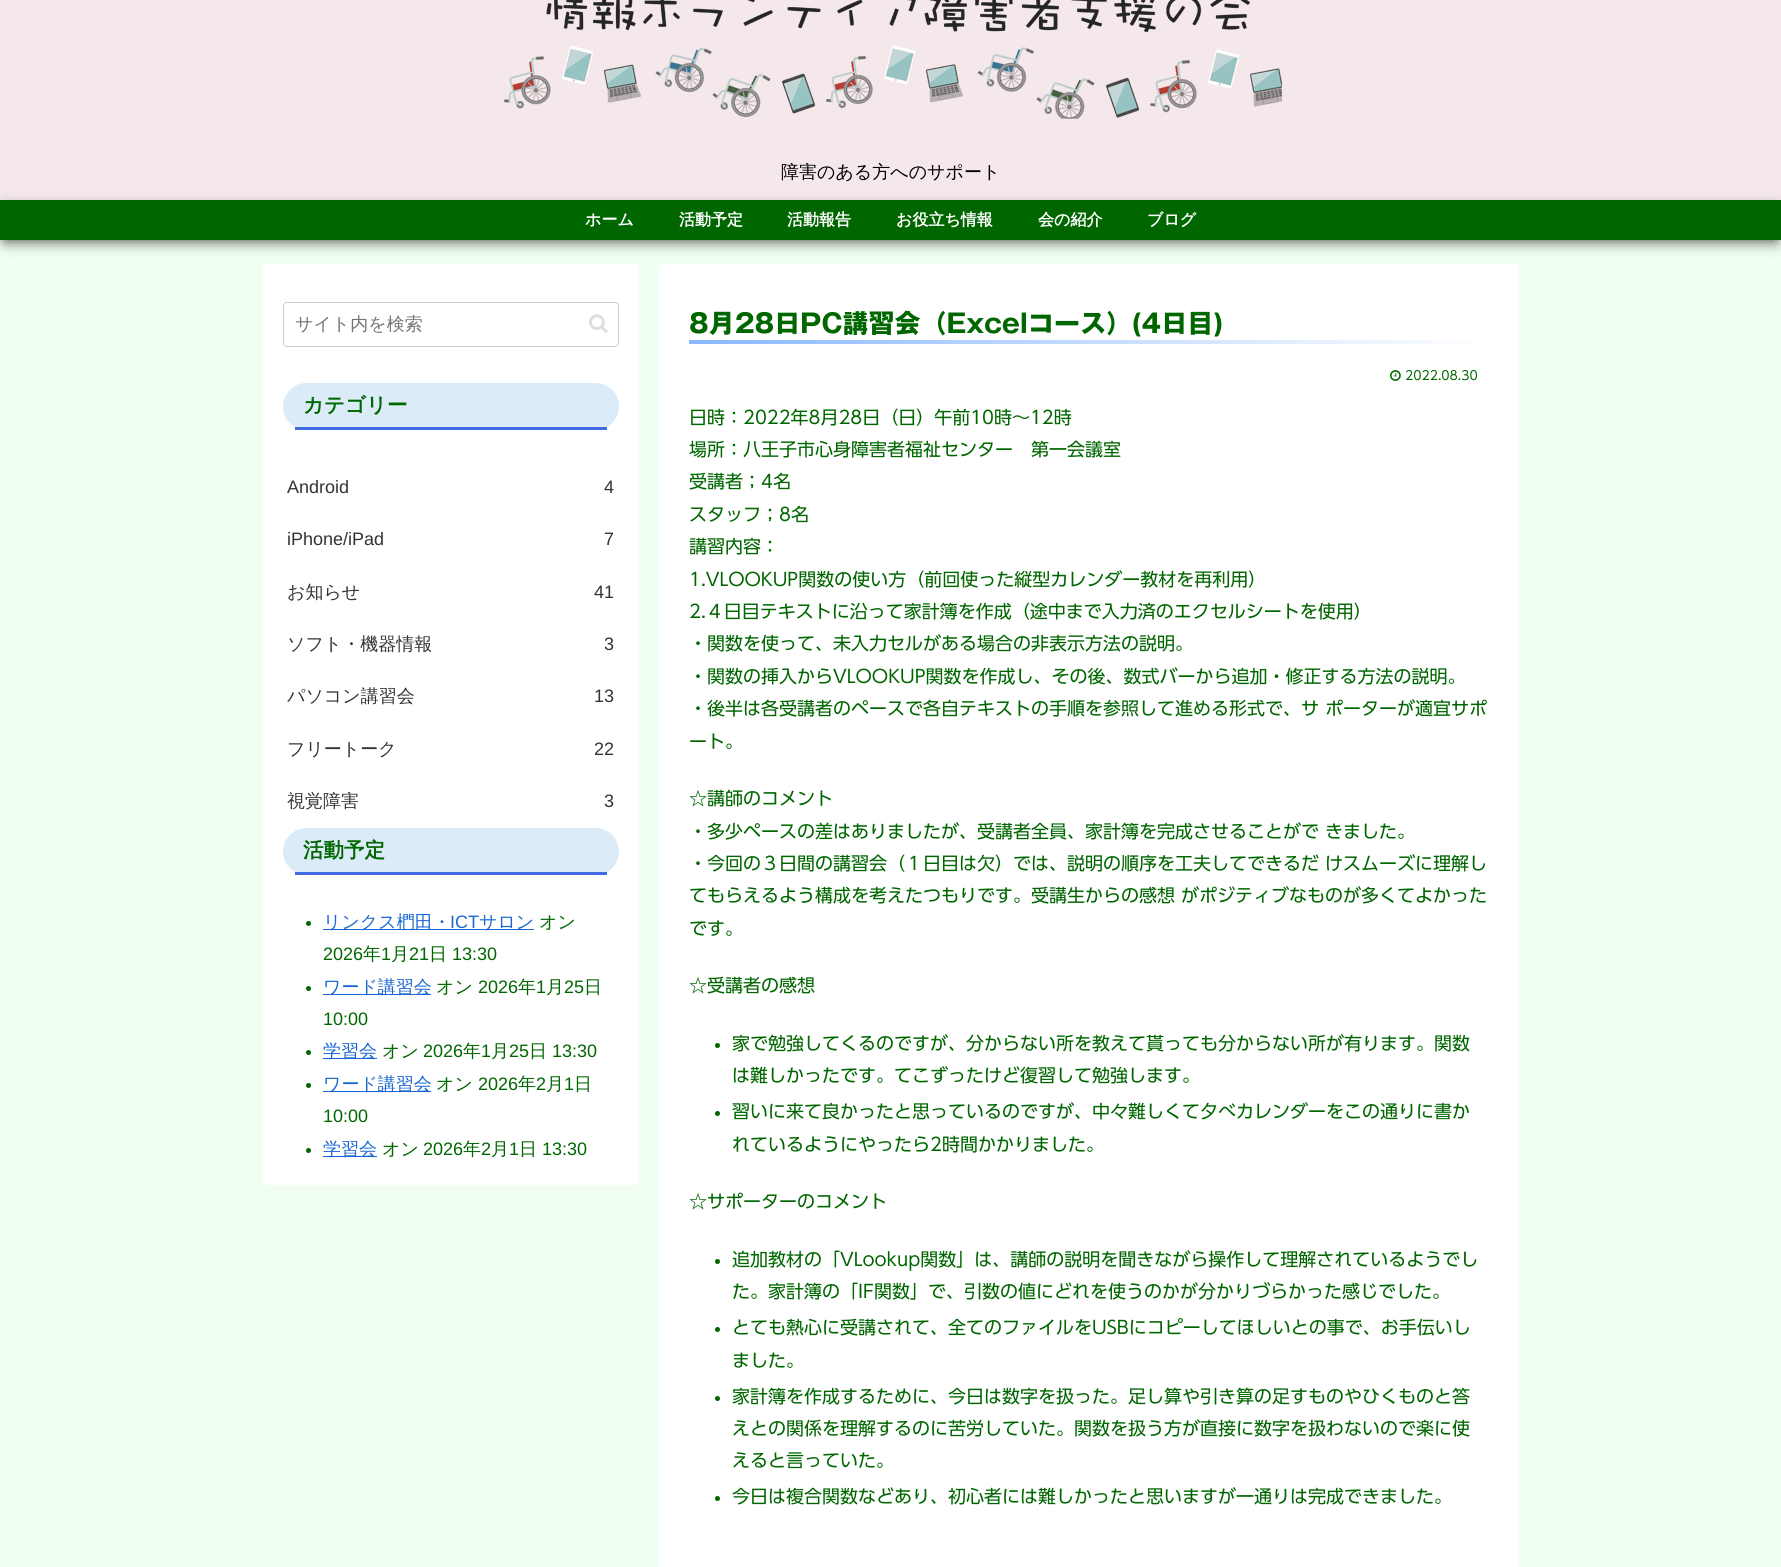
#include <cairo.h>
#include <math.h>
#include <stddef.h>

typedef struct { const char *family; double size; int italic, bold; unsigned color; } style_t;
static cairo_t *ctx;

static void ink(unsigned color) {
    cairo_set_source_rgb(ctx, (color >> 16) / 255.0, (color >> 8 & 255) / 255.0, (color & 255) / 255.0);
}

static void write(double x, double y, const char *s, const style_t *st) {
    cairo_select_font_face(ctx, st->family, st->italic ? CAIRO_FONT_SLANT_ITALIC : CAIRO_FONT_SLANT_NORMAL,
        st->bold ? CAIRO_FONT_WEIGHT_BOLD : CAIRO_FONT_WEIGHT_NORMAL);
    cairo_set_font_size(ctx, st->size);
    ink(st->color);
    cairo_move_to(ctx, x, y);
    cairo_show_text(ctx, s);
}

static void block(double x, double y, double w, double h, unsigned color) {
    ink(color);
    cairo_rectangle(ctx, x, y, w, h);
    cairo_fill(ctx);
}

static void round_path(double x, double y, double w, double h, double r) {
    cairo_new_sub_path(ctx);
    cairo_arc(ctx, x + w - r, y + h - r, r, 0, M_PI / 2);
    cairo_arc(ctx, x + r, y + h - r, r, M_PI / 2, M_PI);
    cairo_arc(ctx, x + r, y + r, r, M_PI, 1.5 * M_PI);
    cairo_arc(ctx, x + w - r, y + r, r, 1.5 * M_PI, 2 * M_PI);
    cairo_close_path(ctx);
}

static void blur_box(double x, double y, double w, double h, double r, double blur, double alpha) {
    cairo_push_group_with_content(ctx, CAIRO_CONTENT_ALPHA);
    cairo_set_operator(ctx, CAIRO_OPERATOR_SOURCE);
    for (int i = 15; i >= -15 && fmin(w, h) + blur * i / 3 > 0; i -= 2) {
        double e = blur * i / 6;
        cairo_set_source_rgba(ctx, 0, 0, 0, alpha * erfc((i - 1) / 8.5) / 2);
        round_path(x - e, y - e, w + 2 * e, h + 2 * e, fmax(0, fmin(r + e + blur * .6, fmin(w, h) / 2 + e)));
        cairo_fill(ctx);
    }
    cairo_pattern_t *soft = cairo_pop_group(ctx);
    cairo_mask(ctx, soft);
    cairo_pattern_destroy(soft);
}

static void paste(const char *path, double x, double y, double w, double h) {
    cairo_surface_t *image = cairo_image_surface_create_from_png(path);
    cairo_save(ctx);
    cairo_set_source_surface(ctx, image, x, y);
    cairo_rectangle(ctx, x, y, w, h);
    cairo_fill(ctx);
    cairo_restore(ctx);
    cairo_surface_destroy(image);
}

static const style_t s1 = {"WenQuanYi Zen Hei Medium", 18, 0, 0, 0x000000};
static const style_t s2 = {"WenQuanYi Zen Hei", 16, 0, 1, 0xffffff};
static const style_t s3 = {"WenQuanYi Zen Hei Medium", 18, 0, 0, 0x757575};
static const style_t s4 = {"WenQuanYi Zen Hei", 20.5, 0, 1, 0x006600};
static const style_t s5 = {"Liberation Sans", 18, 0, 0, 0x333333};
static const style_t s6 = {"WenQuanYi Zen Hei Medium", 18, 0, 0, 0x333333};
static const style_t s7 = {"WenQuanYi Zen Hei Medium", 18, 0, 0, 0x1967d2};
static const style_t s8 = {"Liberation Sans", 18, 0, 0, 0x1967d2};
static const style_t s9 = {"WenQuanYi Zen Hei Medium", 18, 0, 0, 0x006600};
static const style_t s10 = {"Liberation Sans", 18, 0, 0, 0x006600};
static const style_t s11 = {"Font", 26, 0, 1, 0x006600};
static const style_t s12 = {"Font", 12.5, 0, 0, 0x006600};
static const style_t s13 = {"Font", 18, 0, 0, 0x006600};

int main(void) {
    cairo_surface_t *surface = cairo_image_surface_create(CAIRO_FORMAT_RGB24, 1781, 1567);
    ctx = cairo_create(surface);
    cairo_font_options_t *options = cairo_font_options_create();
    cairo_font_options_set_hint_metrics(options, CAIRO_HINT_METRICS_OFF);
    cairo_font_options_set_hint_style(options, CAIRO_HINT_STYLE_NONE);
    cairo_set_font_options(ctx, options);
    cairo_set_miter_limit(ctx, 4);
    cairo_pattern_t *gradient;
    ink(0xf0fff0);
    cairo_paint(ctx);
    block(0, 0, 1781, 200, 0xf4e8ea);
    paste("pic1.png", 504, 0, 778, 119);
    write(781, 178, "障害のある方へのサポート", &s1);
    ink(0x000000);
    blur_box(5, 210, 1771, 30, 0, 7.5, 0.8);
    block(0, 200, 1781, 40, 0x006600);
    write(585, 225, "ホーム", &s2);
    write(679, 225, "活動予定", &s2);
    write(787, 225, "活動報告", &s2);
    write(896, 225, "お役立ち情報", &s2);
    write(1038, 225, "会の紹介", &s2);
    write(1147, 225, "ブログ", &s2);
    round_path(263, 264, 376, 921, 4);
    cairo_fill(ctx);
    round_path(283.5, 302.5, 335, 44, 3.5);
    ink(0xcccccc);
    cairo_set_line_width(ctx, 1);
    cairo_stroke(ctx);
    write(295, 330, "サイト内を検索", &s3);
    paste("pic2.png", 589, 314, 19, 19);
    ink(0xdbebf8);
    round_path(283, 383, 336, 47, 23.5);
    cairo_fill(ctx);
    block(295, 427, 312, 3, 0x4169e1);
    write(303, 412, "カテゴリー", &s4);
    write(287, 493, "Android", &s5);
    write(604, 493, "4", &s5);
    write(287, 545, "iPhone/iPad", &s5);
    write(604, 545, "7", &s5);
    write(287, 598, "お知らせ", &s6);
    write(594, 598, "41", &s5);
    write(287, 650, "ソフト・機器情報", &s6);
    write(604, 650, "3", &s5);
    write(287, 702, "パソコン講習会", &s6);
    write(594, 702, "13", &s5);
    write(287, 755, "フリートーク", &s6);
    write(594, 755, "22", &s5);
    write(287, 807, "視覚障害", &s6);
    write(604, 807, "3", &s5);
    ink(0xdbebf8);
    round_path(283, 828, 336, 47, 23.5);
    cairo_fill(ctx);
    block(295, 872, 312, 3, 0x4169e1);
    write(303, 857, "活動予定", &s4);
    cairo_new_path(ctx);
    cairo_arc(ctx, 308.5, 923.5, 2.5, 0, 2 * M_PI);
    cairo_fill(ctx);
    block(323, 929, 211, 1, 0x1967d2);
    write(323, 928, "リンクス椚田・", &s7);
    write(450, 928, "ICT", &s8);
    write(479, 928, "サロン", &s7);
    write(539, 928, "オン", &s9);
    write(323, 960, "2026", &s10);
    write(363, 960, "年", &s9);
    write(381, 960, "1", &s10);
    write(391, 960, "月", &s9);
    write(409, 960, "21", &s10);
    write(429, 960, "日", &s9);
    write(452, 960, "13:30", &s10);
    cairo_new_path(ctx);
    cairo_arc(ctx, 308.5, 988.5, 2.5, 0, 2 * M_PI);
    cairo_fill(ctx);
    block(323, 994, 108, 1, 0x1967d2);
    write(323, 993, "ワード講習会", &s7);
    write(436, 993, "オン", &s9);
    write(478, 993, "2026", &s10);
    write(518, 993, "年", &s9);
    write(536, 993, "1", &s10);
    write(546, 993, "月", &s9);
    write(564, 993, "25", &s10);
    write(584, 993, "日", &s9);
    write(323, 1025, "10:00", &s10);
    cairo_new_path(ctx);
    cairo_arc(ctx, 308.5, 1052.5, 2.5, 0, 2 * M_PI);
    cairo_fill(ctx);
    block(323, 1058, 54, 1, 0x1967d2);
    write(323, 1057, "学習会", &s7);
    write(382, 1057, "オン", &s9);
    write(423, 1057, "2026", &s10);
    write(463, 1057, "年", &s9);
    write(481, 1057, "1", &s10);
    write(491, 1057, "月", &s9);
    write(509, 1057, "25", &s10);
    write(529, 1057, "日", &s9);
    write(552, 1057, "13:30", &s10);
    cairo_new_path(ctx);
    cairo_arc(ctx, 308.5, 1085.5, 2.5, 0, 2 * M_PI);
    cairo_fill(ctx);
    block(323, 1091, 108, 1, 0x1967d2);
    write(323, 1090, "ワード講習会", &s7);
    write(436, 1090, "オン", &s9);
    write(478, 1090, "2026", &s10);
    write(518, 1090, "年", &s9);
    write(536, 1090, "2", &s10);
    write(546, 1090, "月", &s9);
    write(564, 1090, "1", &s10);
    write(574, 1090, "日", &s9);
    write(323, 1122, "10:00", &s10);
    cairo_new_path(ctx);
    cairo_arc(ctx, 308.5, 1150.5, 2.5, 0, 2 * M_PI);
    cairo_fill(ctx);
    block(323, 1156, 54, 1, 0x1967d2);
    write(323, 1155, "学習会", &s7);
    write(382, 1155, "オン", &s9);
    write(423, 1155, "2026", &s10);
    write(463, 1155, "年", &s9);
    write(481, 1155, "2", &s10);
    write(491, 1155, "月", &s9);
    write(509, 1155, "1", &s10);
    write(519, 1155, "日", &s9);
    write(542, 1155, "13:30", &s10);
    ink(0xffffff);
    round_path(659, 264, 860, 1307, 4);
    cairo_fill(ctx);
    write(689, 333, "8月28日PC講習会（Excelコース）(4日目)", &s11);
    gradient = cairo_pattern_create_linear(689, 342, 1489, 342);
    cairo_pattern_add_color_stop_rgba(gradient, 0, 0.537, 0.722, 1, 1);
    cairo_pattern_add_color_stop_rgba(gradient, 1, 1, 1, 1, 1);
    cairo_set_source(ctx, gradient);
    cairo_pattern_destroy(gradient);
    cairo_rectangle(ctx, 689, 340, 783, 4);
    cairo_fill(ctx);
    paste("pic3.png", 1390, 370, 11, 11);
    write(1405, 380, "2022.08.30", &s12);
    write(689, 424, "日時：2022年8月28日（日）午前10時～12時", &s13);
    write(689, 456, "場所：八王子市心身障害者福祉センター　第一会議室", &s13);
    write(689, 488, "受講者；4名", &s13);
    write(689, 521, "スタッフ；8名", &s13);
    write(689, 553, "講習内容：", &s13);
    write(689, 586, "1.VLOOKUP関数の使い方（前回使った縦型カレンダー教材を再利用）", &s13);
    write(689, 618, "2.４日目テキストに沿って家計簿を作成（途中まで入力済のエクセルシートを使用）", &s13);
    write(689, 650, "・関数を使って、未入力セルがある場合の非表示方法の説明。", &s13);
    write(689, 683, "・関数の挿入からVLOOKUP関数を作成し、その後、数式バーから追加・修正する方法の説明。", &s13);
    write(689, 715, "・後半は各受講者のペースで各自テキストの手順を参照して進める形式で、サ ポーターが適宜サポ", &s13);
    write(689, 748, "ート。", &s13);
    write(689, 805, "☆講師のコメント", &s13);
    write(689, 838, "・多少ペースの差はありましたが、受講者全員、家計簿を完成させることがで きました。", &s13);
    write(689, 870, "・今回の３日間の講習会（１日目は欠）では、説明の順序を工夫してできるだ けスムーズに理解し", &s13);
    write(689, 902, "てもらえるよう構成を考えたつもりです。受講生からの感想 がポジティブなものが多くてよかった", &s13);
    write(689, 935, "です。", &s13);
    write(689, 992, "☆受講者の感想", &s13);
    cairo_new_path(ctx);
    cairo_arc(ctx, 717.5, 1045.5, 2.5, 0, 2 * M_PI);
    cairo_fill(ctx);
    write(732, 1050, "家で勉強してくるのですが、分からない所を教えて貰っても分からない所が有ります。関数", &s13);
    write(732, 1082, "は難しかったです。てこずったけど復習して勉強します。", &s13);
    cairo_new_path(ctx);
    cairo_arc(ctx, 717.5, 1113.5, 2.5, 0, 2 * M_PI);
    cairo_fill(ctx);
    write(732, 1118, "習いに来て良かったと思っているのですが、中々難しくて夕べカレンダーをこの通りに書か", &s13);
    write(732, 1151, "れているようにやったら2時間かかりました。", &s13);
    write(689, 1208, "☆サポーターのコメント", &s13);
    cairo_new_path(ctx);
    cairo_arc(ctx, 717.5, 1261.5, 2.5, 0, 2 * M_PI);
    cairo_fill(ctx);
    write(732, 1266, "追加教材の「VLookup関数」は、講師の説明を聞きながら操作して理解されているようでし", &s13);
    write(732, 1298, "た。家計簿の「IF関数」で、引数の値にどれを使うのかが分かりづらかった感じでした。", &s13);
    cairo_new_path(ctx);
    cairo_arc(ctx, 717.5, 1329.5, 2.5, 0, 2 * M_PI);
    cairo_fill(ctx);
    write(732, 1334, "とても熱心に受講されて、全てのファイルをUSBにコピーしてほしいとの事で、お手伝いし", &s13);
    write(732, 1367, "ました。", &s13);
    cairo_new_path(ctx);
    cairo_arc(ctx, 717.5, 1398.5, 2.5, 0, 2 * M_PI);
    cairo_fill(ctx);
    write(732, 1403, "家計簿を作成するために、今日は数字を扱った。足し算や引き算の足すものやひくものと答", &s13);
    write(732, 1435, "えとの関係を理解するのに苦労していた。関数を扱う方が直接に数字を扱わないので楽に使", &s13);
    write(732, 1467, "えると言っていた。", &s13);
    cairo_new_path(ctx);
    cairo_arc(ctx, 717.5, 1498.5, 2.5, 0, 2 * M_PI);
    cairo_fill(ctx);
    write(732, 1503, "今日は複合関数などあり、初心者には難しかったと思いますが一通りは完成できました。", &s13);
    cairo_surface_write_to_png(surface, "screenshot.png");
    cairo_font_options_destroy(options);
    cairo_destroy(ctx);
    cairo_surface_destroy(surface);
    return 0;
}
